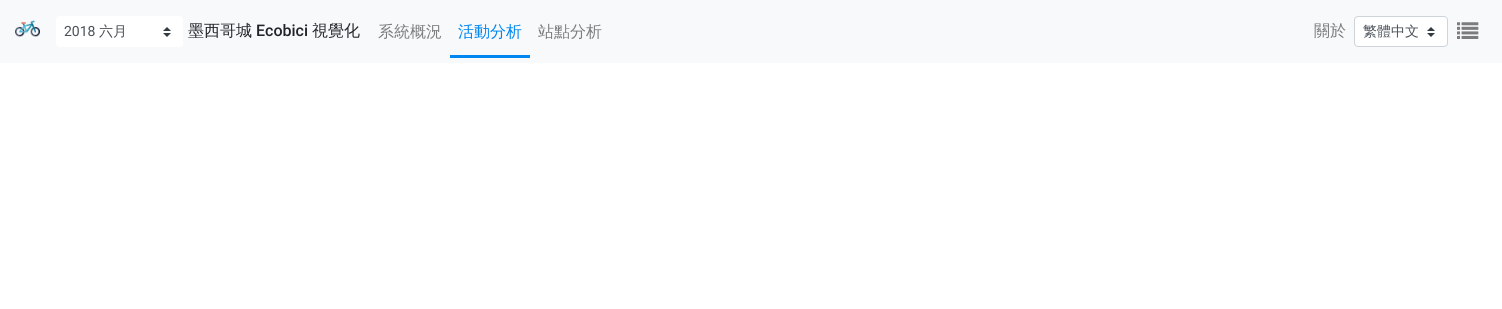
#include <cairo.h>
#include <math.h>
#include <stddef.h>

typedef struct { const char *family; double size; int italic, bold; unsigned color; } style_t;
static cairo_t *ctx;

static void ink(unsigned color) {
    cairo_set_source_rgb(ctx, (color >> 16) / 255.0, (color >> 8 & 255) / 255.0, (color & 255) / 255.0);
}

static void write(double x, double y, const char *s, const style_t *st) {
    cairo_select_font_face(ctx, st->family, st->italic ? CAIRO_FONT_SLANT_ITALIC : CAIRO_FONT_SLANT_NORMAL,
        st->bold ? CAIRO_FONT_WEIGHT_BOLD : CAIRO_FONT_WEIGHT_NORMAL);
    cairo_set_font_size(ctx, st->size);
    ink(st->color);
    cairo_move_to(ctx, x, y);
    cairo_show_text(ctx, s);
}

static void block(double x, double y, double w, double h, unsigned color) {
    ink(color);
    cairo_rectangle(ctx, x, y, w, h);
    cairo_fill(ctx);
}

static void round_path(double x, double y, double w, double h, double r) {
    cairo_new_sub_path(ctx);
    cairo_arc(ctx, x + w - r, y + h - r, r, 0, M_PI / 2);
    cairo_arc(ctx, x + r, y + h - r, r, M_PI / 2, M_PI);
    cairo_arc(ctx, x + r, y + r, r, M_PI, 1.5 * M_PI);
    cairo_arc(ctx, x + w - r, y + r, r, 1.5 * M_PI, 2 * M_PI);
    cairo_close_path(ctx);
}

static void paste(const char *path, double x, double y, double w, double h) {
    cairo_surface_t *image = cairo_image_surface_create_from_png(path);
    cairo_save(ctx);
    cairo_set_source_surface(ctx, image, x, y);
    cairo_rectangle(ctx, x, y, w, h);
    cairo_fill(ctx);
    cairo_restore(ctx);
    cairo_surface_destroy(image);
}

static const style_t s1 = {"Roboto", 14, 0, 0, 0x495057};
static const style_t s2 = {"WenQuanYi Zen Hei Medium", 14, 0, 0, 0x495057};
static const style_t s3 = {"WenQuanYi Zen Hei Medium", 16, 0, 0, 0x212529};
static const style_t s4 = {"Roboto Medium", 16, 0, 0, 0x212529};
static const style_t s5 = {"WenQuanYi Zen Hei Medium", 16, 0, 0, 0x7c7d7d};
static const style_t s6 = {"WenQuanYi Zen Hei Medium", 16, 0, 0, 0x0086f1};

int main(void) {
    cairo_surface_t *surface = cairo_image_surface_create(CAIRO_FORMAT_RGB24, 1502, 309);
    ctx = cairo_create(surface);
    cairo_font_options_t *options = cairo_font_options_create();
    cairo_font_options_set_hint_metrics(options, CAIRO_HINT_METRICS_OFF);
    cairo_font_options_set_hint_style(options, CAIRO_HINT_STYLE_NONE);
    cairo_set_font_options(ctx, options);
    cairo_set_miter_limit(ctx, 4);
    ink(0xffffff);
    cairo_paint(ctx);
    block(0, 0, 1502, 63, 0xf8f9fa);
    paste("pic1.png", 15, 20, 25, 17);
    ink(0xffffff);
    round_path(56, 16, 127, 31, 4);
    cairo_fill(ctx);
    paste("pic2.png", 163, 27, 8, 10);
    write(64, 36, "2018", &s1);
    write(99, 36, "六月", &s2);
    write(188, 36, "墨西哥城", &s3);
    write(256, 36, "Ecobici", &s4);
    write(312, 36, "視覺化", &s3);
    write(378, 37, "系統概況", &s5);
    write(458, 37, "活動分析", &s6);
    block(450, 55, 80, 3, 0x0086f1);
    write(538, 37, "站點分析", &s5);
    write(1314, 36, "關於", &s5);
    ink(0xffffff);
    round_path(1354, 16, 94, 31, 4);
    cairo_fill(ctx);
    paste("pic2.png", 1427, 27, 8, 10);
    round_path(1354.5, 16.5, 93, 30, 3.5);
    ink(0xced4da);
    cairo_set_line_width(ctx, 1);
    cairo_stroke(ctx);
    write(1363, 36, "繁體中文", &s2);
    paste("pic3.png", 1457, 22, 22, 17);
    cairo_surface_write_to_png(surface, "screenshot.png");
    cairo_font_options_destroy(options);
    cairo_destroy(ctx);
    cairo_surface_destroy(surface);
    return 0;
}
